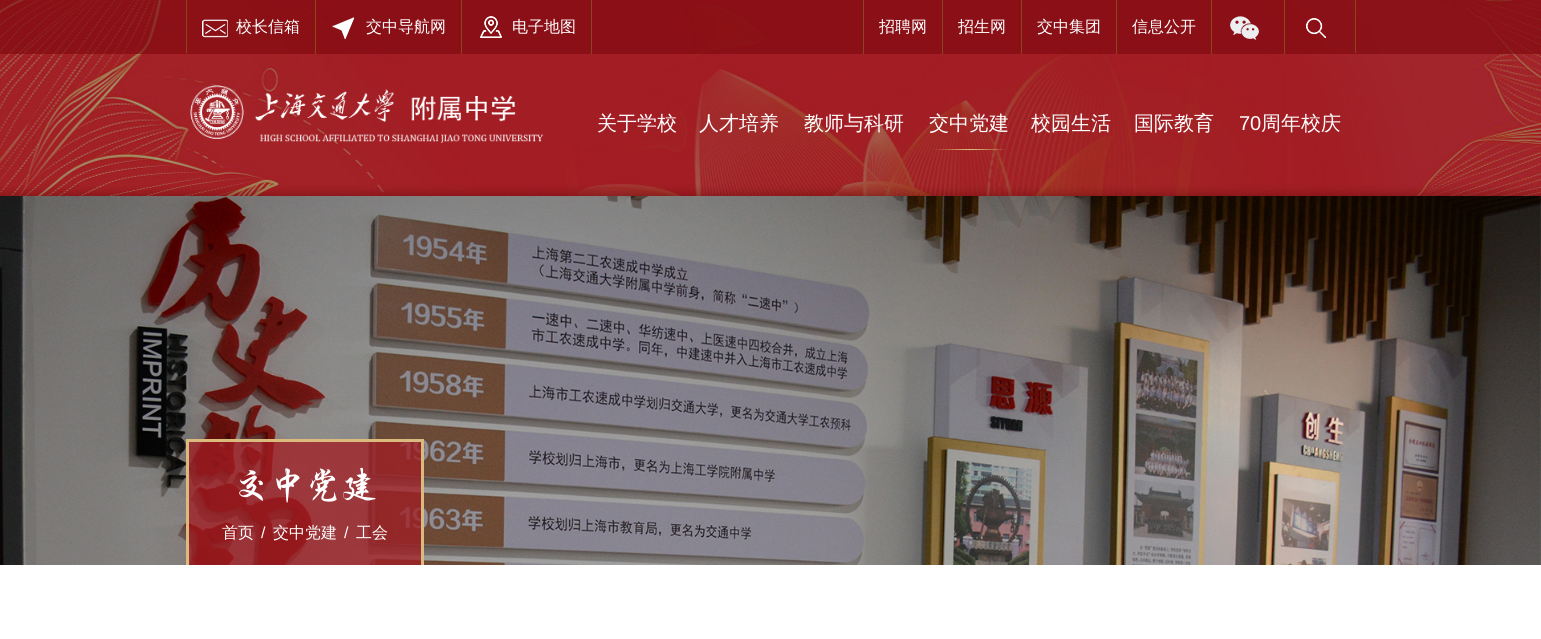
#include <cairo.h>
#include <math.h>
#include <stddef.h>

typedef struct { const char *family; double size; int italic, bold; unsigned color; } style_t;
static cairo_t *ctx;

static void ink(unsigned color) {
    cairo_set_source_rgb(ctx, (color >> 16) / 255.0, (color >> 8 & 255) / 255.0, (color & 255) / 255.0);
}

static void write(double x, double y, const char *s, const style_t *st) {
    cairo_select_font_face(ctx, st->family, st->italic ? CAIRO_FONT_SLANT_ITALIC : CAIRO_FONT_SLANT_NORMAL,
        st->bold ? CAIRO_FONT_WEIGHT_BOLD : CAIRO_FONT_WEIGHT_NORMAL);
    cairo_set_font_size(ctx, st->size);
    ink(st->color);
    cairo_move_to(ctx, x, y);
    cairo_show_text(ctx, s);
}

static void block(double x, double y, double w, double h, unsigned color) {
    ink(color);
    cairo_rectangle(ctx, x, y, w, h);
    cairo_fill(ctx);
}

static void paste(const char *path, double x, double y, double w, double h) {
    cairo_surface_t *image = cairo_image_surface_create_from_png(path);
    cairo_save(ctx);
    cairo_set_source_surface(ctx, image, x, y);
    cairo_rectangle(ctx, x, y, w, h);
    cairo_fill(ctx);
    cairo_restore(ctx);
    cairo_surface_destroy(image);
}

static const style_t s1 = {"WenQuanYi Zen Hei Medium", 16, 0, 0, 0xffffff};
static const style_t s2 = {"WenQuanYi Zen Hei Medium", 20, 0, 0, 0xffffff};
static const style_t s3 = {"Liberation Sans", 20, 0, 0, 0xffffff};
static const style_t s4 = {"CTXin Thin", 36, 0, 0, 0xffffff};
static const style_t s5 = {"Liberation Sans", 16, 0, 0, 0xffffff};

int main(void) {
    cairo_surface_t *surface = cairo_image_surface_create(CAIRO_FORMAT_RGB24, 1541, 639);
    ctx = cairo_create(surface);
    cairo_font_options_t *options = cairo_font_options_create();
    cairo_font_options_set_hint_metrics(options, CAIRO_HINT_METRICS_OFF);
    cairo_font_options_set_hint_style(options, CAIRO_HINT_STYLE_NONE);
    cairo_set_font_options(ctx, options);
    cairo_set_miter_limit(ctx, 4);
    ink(0xffffff);
    cairo_paint(ctx);
    paste("pic1.png", 0, 0, 1541, 196);
    cairo_set_source_rgba(ctx, 0.498, 0.031, 0.055, 0.65);
    cairo_rectangle(ctx, 0, 0, 1541, 54);
    cairo_fill(ctx);
    block(186, 0, 1, 53, 0x8a471a);
    block(315, 0, 1, 54, 0x8a471a);
    paste("pic2.png", 202, 19, 26, 19);
    write(236, 32, "校长信箱", &s1);
    block(461, 0, 1, 54, 0x8a471a);
    paste("pic3.png", 332, 17, 22, 22);
    write(366, 32, "交中导航网", &s1);
    block(591, 0, 1, 54, 0x8a471a);
    paste("pic4.png", 480, 16, 22, 22);
    write(512, 32, "电子地图", &s1);
    block(1355, 0, 1, 53, 0x8a471a);
    block(863, 0, 1, 54, 0x8a471a);
    write(879, 32, "招聘网", &s1);
    block(942, 0, 1, 54, 0x8a471a);
    write(958, 32, "招生网", &s1);
    block(1021, 0, 1, 54, 0x8a471a);
    write(1037, 32, "交中集团", &s1);
    block(1116, 0, 1, 54, 0x8a471a);
    write(1132, 32, "信息公开", &s1);
    block(1211, 0, 1, 54, 0x8a471a);
    paste("pic5.png", 1230, 16, 29, 24);
    block(1284, 0, 1, 54, 0x8a471a);
    paste("pic6.png", 1306, 18, 20, 20);
    paste("pic7.png", 190, 85, 354, 58);
    write(597, 130, "关于学校", &s2);
    write(699, 130, "人才培养", &s2);
    write(804, 130, "教师与科研", &s2);
    paste("pic8.png", 934, 149, 71, 1);
    write(929, 130, "交中党建", &s2);
    write(1031, 130, "校园生活", &s2);
    write(1134, 130, "国际教育", &s2);
    write(1239, 130, "70", &s3);
    write(1261, 130, "周年校庆", &s2);
    paste("pic9.png", 0, 196, 1541, 369);
    cairo_set_source_rgba(ctx, 0.635, 0.114, 0.137, 0.75);
    cairo_rectangle(ctx, 189, 442, 232, 123);
    cairo_fill(ctx);
    block(186, 439, 238, 3, 0xdbbb7d);
    block(421, 439, 3, 126, 0xdbbb7d);
    block(186, 439, 3, 126, 0xdbbb7d);
    write(233, 498, "交中党建", &s4);
    write(222, 538, "首页", &s1);
    write(261, 538, "/", &s5);
    write(273, 538, "交中党建", &s1);
    write(344, 538, "/", &s5);
    write(356, 538, "工会", &s1);
    cairo_surface_write_to_png(surface, "screenshot.png");
    cairo_font_options_destroy(options);
    cairo_destroy(ctx);
    cairo_surface_destroy(surface);
    return 0;
}
